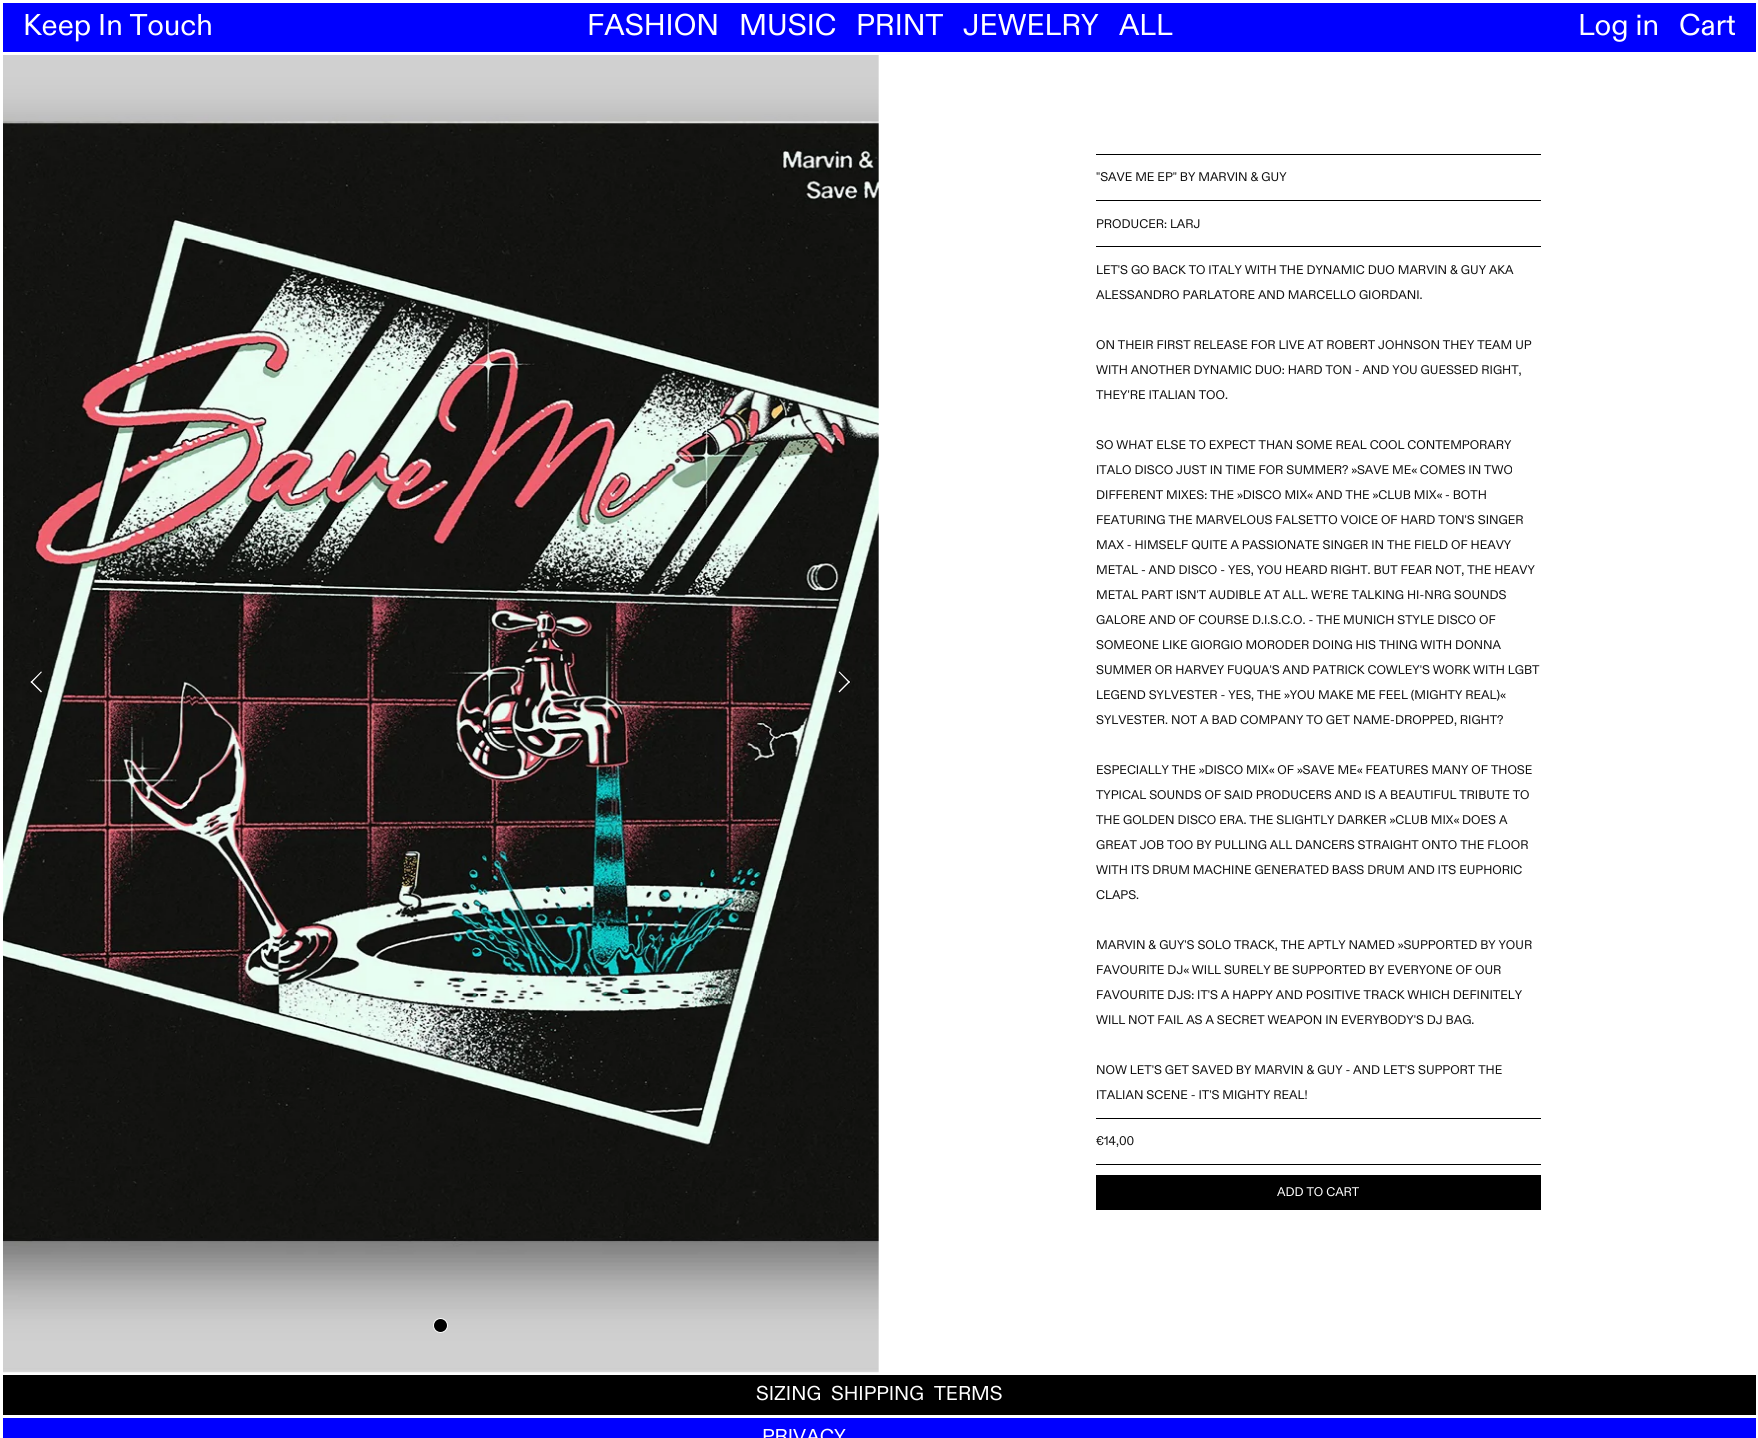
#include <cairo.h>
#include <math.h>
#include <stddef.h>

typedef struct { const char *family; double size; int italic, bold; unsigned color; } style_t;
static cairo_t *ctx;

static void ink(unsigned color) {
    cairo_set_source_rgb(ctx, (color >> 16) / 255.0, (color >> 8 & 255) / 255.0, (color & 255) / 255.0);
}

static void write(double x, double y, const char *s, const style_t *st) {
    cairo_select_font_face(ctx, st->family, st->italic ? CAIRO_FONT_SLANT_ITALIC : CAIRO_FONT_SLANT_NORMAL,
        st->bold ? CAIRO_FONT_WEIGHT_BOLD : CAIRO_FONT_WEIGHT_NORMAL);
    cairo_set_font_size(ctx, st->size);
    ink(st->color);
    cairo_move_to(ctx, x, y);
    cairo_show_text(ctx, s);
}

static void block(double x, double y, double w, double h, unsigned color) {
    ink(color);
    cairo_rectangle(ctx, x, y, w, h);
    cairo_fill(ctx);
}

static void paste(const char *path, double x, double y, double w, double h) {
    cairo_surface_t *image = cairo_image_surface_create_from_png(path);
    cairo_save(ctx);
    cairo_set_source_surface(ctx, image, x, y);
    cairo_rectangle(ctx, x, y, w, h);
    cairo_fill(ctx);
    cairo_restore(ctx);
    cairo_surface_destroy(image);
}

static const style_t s1 = {"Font", 30, 0, 0, 0xffffff};
static const style_t s2 = {"Font", 12.5, 0, 0, 0x121212};
static const style_t s3 = {"Font", 12.5, 0, 0, 0xffffff};
static const style_t s4 = {"Font", 20, 0, 0, 0xffffff};

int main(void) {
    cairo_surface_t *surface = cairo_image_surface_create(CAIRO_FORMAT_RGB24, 1758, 1438);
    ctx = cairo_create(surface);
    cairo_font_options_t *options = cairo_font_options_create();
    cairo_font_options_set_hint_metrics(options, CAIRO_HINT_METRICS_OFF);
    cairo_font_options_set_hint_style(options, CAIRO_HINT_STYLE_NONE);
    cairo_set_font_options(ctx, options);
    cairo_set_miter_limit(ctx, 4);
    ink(0xffffff);
    cairo_paint(ctx);
    block(3, 3, 1753, 49, 0x0000ff);
    write(23, 35, "Keep In Touch", &s1);
    write(587, 35, "FASHION", &s1);
    write(739, 35, "MUSIC", &s1);
    write(856, 35, "PRINT", &s1);
    write(963, 35, "JEWELRY", &s1);
    write(1119, 35, "ALL", &s1);
    write(1578, 35, "Log in", &s1);
    write(1679, 35, "Cart", &s1);
    paste("pic1.png", 3, 55, 876, 1318);
    ink(0x000000);
    cairo_new_path(ctx);
    cairo_move_to(ctx, 40, 692.5);
    cairo_line_to(ctx, 29.5, 682);
    cairo_line_to(ctx, 30.5, 681);
    cairo_line_to(ctx, 41, 691.5);
    cairo_close_path(ctx);
    cairo_fill(ctx);
    cairo_new_path(ctx);
    cairo_move_to(ctx, 30.5, 683);
    cairo_line_to(ctx, 29.5, 682);
    cairo_line_to(ctx, 40, 671.5);
    cairo_line_to(ctx, 41, 672);
    cairo_close_path(ctx);
    cairo_fill(ctx);
    ink(0xffffff);
    cairo_new_path(ctx);
    cairo_move_to(ctx, 41, 692.5);
    cairo_line_to(ctx, 30.5, 682);
    cairo_line_to(ctx, 31.5, 681);
    cairo_line_to(ctx, 42, 691.5);
    cairo_close_path(ctx);
    cairo_fill(ctx);
    cairo_new_path(ctx);
    cairo_move_to(ctx, 31.5, 683);
    cairo_line_to(ctx, 30.5, 682);
    cairo_line_to(ctx, 41, 671.5);
    cairo_line_to(ctx, 42, 672);
    cairo_close_path(ctx);
    cairo_fill(ctx);
    ink(0x000000);
    cairo_new_path(ctx);
    cairo_move_to(ctx, 840.5, 671.5);
    cairo_line_to(ctx, 851, 682);
    cairo_line_to(ctx, 850.5, 683);
    cairo_line_to(ctx, 839.5, 672);
    cairo_close_path(ctx);
    cairo_fill(ctx);
    cairo_new_path(ctx);
    cairo_move_to(ctx, 850.5, 681);
    cairo_line_to(ctx, 851, 682);
    cairo_line_to(ctx, 840.5, 692.5);
    cairo_line_to(ctx, 839.5, 691.5);
    cairo_close_path(ctx);
    cairo_fill(ctx);
    ink(0xffffff);
    cairo_new_path(ctx);
    cairo_move_to(ctx, 839.5, 671.5);
    cairo_line_to(ctx, 850, 682);
    cairo_line_to(ctx, 849, 683);
    cairo_line_to(ctx, 838.5, 672);
    cairo_close_path(ctx);
    cairo_fill(ctx);
    cairo_new_path(ctx);
    cairo_move_to(ctx, 849, 681);
    cairo_line_to(ctx, 850, 682);
    cairo_line_to(ctx, 839.5, 692.5);
    cairo_line_to(ctx, 838.5, 691.5);
    cairo_close_path(ctx);
    cairo_fill(ctx);
    ink(0x000000);
    cairo_arc(ctx, 440.5, 1325.5, 7, 0, 2 * M_PI);
    cairo_fill_preserve(ctx);
    ink(0xffffff);
    cairo_set_line_width(ctx, 1);
    cairo_stroke(ctx);
    block(1096, 154, 445, 1, 0x000000);
    block(1096, 200, 445, 1, 0x000000);
    write(1096, 181, "\"SAVE ME EP\" BY MARVIN & GUY", &s2);
    block(1096, 246, 445, 1, 0x000000);
    write(1096, 228, "PRODUCER: LARJ", &s2);
    block(1096, 1118, 445, 1, 0x000000);
    write(1096, 274, "LET'S GO BACK TO ITALY WITH THE DYNAMIC DUO MARVIN & GUY AKA", &s2);
    write(1096, 299, "ALESSANDRO PARLATORE AND MARCELLO GIORDANI.", &s2);
    write(1096, 349, "ON THEIR FIRST RELEASE FOR LIVE AT ROBERT JOHNSON THEY TEAM UP", &s2);
    write(1096, 374, "WITH ANOTHER DYNAMIC DUO: HARD TON - AND YOU GUESSED RIGHT,", &s2);
    write(1096, 399, "THEY'RE ITALIAN TOO.", &s2);
    write(1096, 449, "SO WHAT ELSE TO EXPECT THAN SOME REAL COOL CONTEMPORARY", &s2);
    write(1096, 474, "ITALO DISCO JUST IN TIME FOR SUMMER? »SAVE ME« COMES IN TWO", &s2);
    write(1096, 499, "DIFFERENT MIXES: THE »DISCO MIX« AND THE »CLUB MIX« - BOTH", &s2);
    write(1096, 524, "FEATURING THE MARVELOUS FALSETTO VOICE OF HARD TON'S SINGER", &s2);
    write(1096, 549, "MAX - HIMSELF QUITE A PASSIONATE SINGER IN THE FIELD OF HEAVY", &s2);
    write(1096, 574, "METAL - AND DISCO - YES, YOU HEARD RIGHT. BUT FEAR NOT, THE HEAVY", &s2);
    write(1096, 599, "METAL PART ISN'T AUDIBLE AT ALL. WE'RE TALKING HI-NRG SOUNDS", &s2);
    write(1096, 624, "GALORE AND OF COURSE D.I.S.C.O. - THE MUNICH STYLE DISCO OF", &s2);
    write(1096, 649, "SOMEONE LIKE GIORGIO MORODER DOING HIS THING WITH DONNA", &s2);
    write(1096, 674, "SUMMER OR HARVEY FUQUA'S AND PATRICK COWLEY'S WORK WITH LGBT", &s2);
    write(1096, 699, "LEGEND SYLVESTER - YES, THE »YOU MAKE ME FEEL (MIGHTY REAL)«", &s2);
    write(1096, 724, "SYLVESTER. NOT A BAD COMPANY TO GET NAME-DROPPED, RIGHT?", &s2);
    write(1096, 774, "ESPECIALLY THE »DISCO MIX« OF »SAVE ME« FEATURES MANY OF THOSE", &s2);
    write(1096, 799, "TYPICAL SOUNDS OF SAID PRODUCERS AND IS A BEAUTIFUL TRIBUTE TO", &s2);
    write(1096, 824, "THE GOLDEN DISCO ERA. THE SLIGHTLY DARKER »CLUB MIX« DOES A", &s2);
    write(1096, 849, "GREAT JOB TOO BY PULLING ALL DANCERS STRAIGHT ONTO THE FLOOR", &s2);
    write(1096, 874, "WITH ITS DRUM MACHINE GENERATED BASS DRUM AND ITS EUPHORIC", &s2);
    write(1096, 899, "CLAPS.", &s2);
    write(1096, 949, "MARVIN & GUY'S SOLO TRACK, THE APTLY NAMED »SUPPORTED BY YOUR", &s2);
    write(1096, 974, "FAVOURITE DJ« WILL SURELY BE SUPPORTED BY EVERYONE OF OUR", &s2);
    write(1096, 999, "FAVOURITE DJS: IT'S A HAPPY AND POSITIVE TRACK WHICH DEFINITELY", &s2);
    write(1096, 1024, "WILL NOT FAIL AS A SECRET WEAPON IN EVERYBODY'S DJ BAG.", &s2);
    write(1096, 1074, "NOW LET'S GET SAVED BY MARVIN & GUY - AND LET'S SUPPORT THE", &s2);
    write(1096, 1099, "ITALIAN SCENE - IT'S MIGHTY REAL!", &s2);
    block(1096, 1164, 445, 1, 0x000000);
    write(1096, 1145, "€14,00", &s2);
    block(1096, 1175, 445, 35, 0x000000);
    write(1277, 1196, "ADD TO CART", &s3);
    block(3, 1375, 1753, 40, 0x000000);
    write(756, 1400, "SIZING", &s4);
    write(831, 1400, "SHIPPING", &s4);
    write(934, 1400, "TERMS", &s4);
    block(3, 1418, 1753, 20, 0x0000ff);
    write(762, 1443, "PRIVACY", &s4);
    cairo_surface_write_to_png(surface, "screenshot.png");
    cairo_font_options_destroy(options);
    cairo_destroy(ctx);
    cairo_surface_destroy(surface);
    return 0;
}
